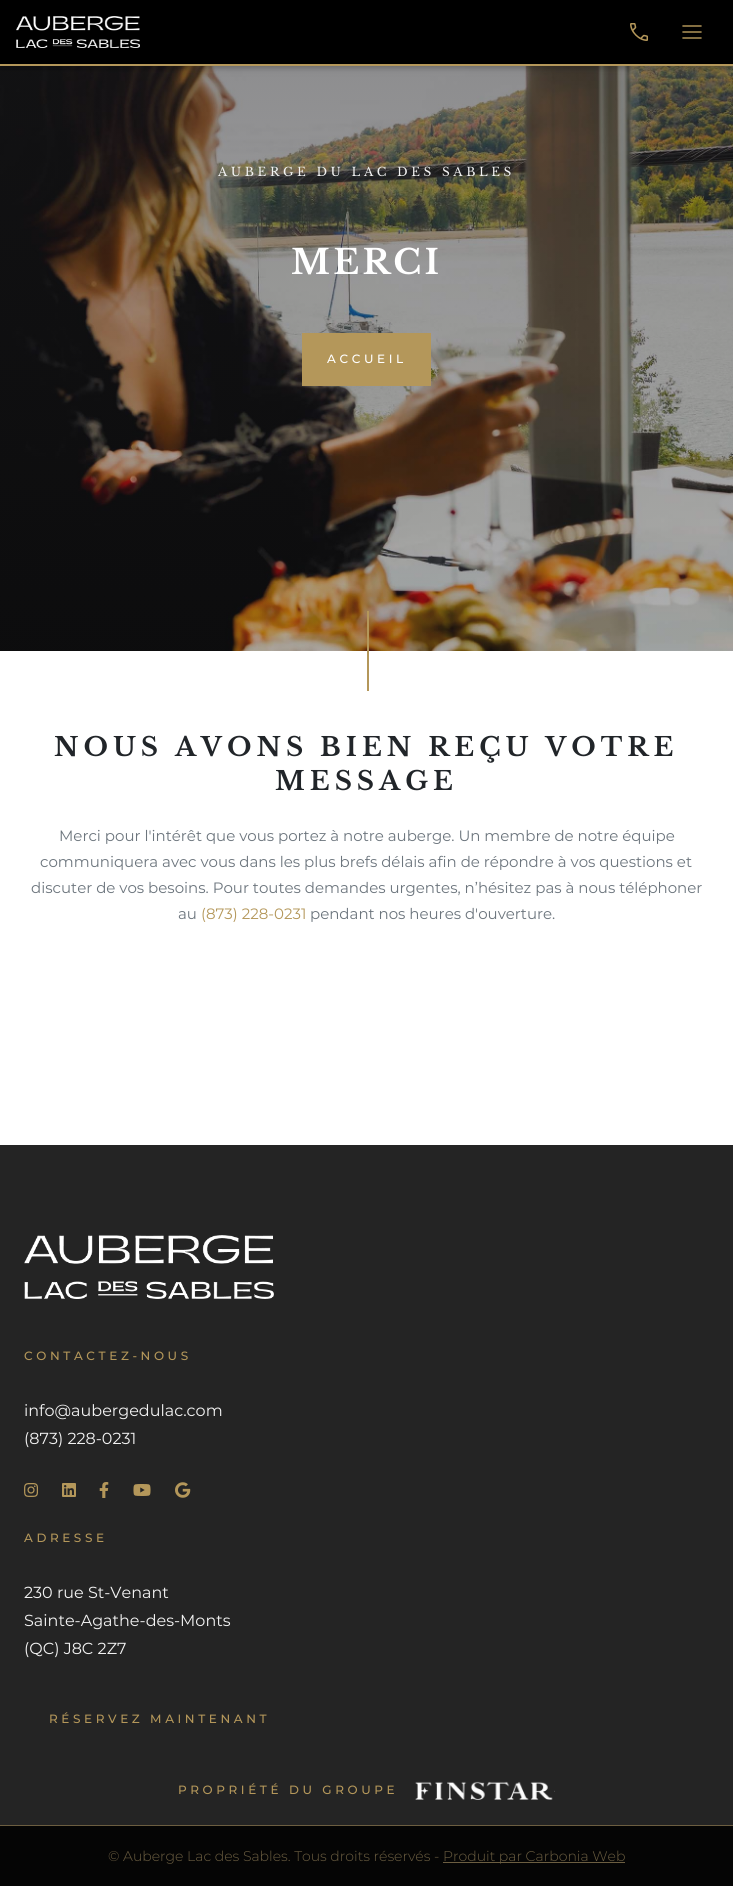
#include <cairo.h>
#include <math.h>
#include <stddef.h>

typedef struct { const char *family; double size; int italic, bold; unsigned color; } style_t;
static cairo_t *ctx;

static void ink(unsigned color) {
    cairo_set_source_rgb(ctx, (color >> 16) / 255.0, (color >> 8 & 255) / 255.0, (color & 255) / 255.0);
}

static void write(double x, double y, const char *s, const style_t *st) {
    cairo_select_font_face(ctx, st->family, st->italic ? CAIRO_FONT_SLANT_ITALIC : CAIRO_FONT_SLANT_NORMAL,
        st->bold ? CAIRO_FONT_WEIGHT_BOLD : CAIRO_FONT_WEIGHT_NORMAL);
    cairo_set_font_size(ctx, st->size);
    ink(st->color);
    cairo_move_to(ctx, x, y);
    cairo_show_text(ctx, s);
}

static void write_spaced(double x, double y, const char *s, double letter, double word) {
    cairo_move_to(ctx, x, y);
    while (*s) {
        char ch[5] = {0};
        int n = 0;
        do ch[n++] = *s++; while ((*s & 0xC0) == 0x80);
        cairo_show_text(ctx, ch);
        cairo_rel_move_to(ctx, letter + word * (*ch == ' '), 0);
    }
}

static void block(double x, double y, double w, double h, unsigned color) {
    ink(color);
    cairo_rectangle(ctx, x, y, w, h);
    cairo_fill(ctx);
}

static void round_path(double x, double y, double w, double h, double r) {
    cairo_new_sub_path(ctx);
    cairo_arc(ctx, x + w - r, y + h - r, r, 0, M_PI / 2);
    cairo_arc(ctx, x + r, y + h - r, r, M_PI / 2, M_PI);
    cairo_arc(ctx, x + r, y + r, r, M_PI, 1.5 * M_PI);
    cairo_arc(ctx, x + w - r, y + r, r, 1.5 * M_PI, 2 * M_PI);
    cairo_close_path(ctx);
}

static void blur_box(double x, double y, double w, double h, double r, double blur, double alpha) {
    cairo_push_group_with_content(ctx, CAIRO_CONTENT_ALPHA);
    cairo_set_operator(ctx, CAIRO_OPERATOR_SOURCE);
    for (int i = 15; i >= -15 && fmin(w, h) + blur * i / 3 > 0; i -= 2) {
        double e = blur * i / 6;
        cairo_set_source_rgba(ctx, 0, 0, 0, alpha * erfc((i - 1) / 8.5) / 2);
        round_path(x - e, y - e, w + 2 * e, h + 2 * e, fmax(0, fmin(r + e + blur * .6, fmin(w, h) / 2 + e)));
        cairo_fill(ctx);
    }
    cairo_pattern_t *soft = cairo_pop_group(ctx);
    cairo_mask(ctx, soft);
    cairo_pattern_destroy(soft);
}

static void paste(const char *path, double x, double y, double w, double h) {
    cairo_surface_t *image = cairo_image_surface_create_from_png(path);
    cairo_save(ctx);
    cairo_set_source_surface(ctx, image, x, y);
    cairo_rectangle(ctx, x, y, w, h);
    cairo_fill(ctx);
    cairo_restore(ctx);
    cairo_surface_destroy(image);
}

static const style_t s1 = {"Montserrat", 15, 0, 0, 0x6c757d};
static const style_t s2 = {"Montserrat", 15, 0, 0, 0xb4975a};
static const style_t s3 = {"Montserrat", 16, 0, 0, 0xf2f2f2};
static const style_t s4 = {"Montserrat Light", 14, 0, 0, 0x6c5e41};

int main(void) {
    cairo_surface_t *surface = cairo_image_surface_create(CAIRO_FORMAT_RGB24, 733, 1886);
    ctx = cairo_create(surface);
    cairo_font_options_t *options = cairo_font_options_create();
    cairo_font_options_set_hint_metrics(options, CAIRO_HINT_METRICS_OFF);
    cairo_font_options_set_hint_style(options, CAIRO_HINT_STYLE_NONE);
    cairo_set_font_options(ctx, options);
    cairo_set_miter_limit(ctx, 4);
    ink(0xffffff);
    cairo_paint(ctx);
    paste("pic4.png", 0, 66, 733, 585);
    ink(0x000000);
    blur_box(0, 2, 733, 66, 0, 5, 0.12);
    blur_box(0, 2, 733, 66, 0, 2.5, 0.16);
    block(0, 0, 733, 64, 0x000000);
    block(0, 64, 733, 2, 0xb4975a);
    paste("pic1.png", 16, 16, 124, 32);
    paste("pic2.png", 630, 23, 18, 18);
    paste("pic3.png", 682, 25, 20, 14);
    cairo_select_font_face(ctx, "Libre Baskerville", CAIRO_FONT_SLANT_NORMAL, CAIRO_FONT_WEIGHT_NORMAL);
    cairo_set_font_size(ctx, 12);
    ink(0xf2f2f2);
    write_spaced(218, 176, "AUBERGE DU LAC DES SABLES", 3.6, 0);
    cairo_select_font_face(ctx, "Libre Baskerville", CAIRO_FONT_SLANT_NORMAL, CAIRO_FONT_WEIGHT_BOLD);
    cairo_set_font_size(ctx, 34);
    ink(0xffffff);
    write_spaced(291, 274, "MERCI", 3.25, 0);
    block(302, 333, 129, 53, 0xb4975a);
    cairo_select_font_face(ctx, "Montserrat Medium", CAIRO_FONT_SLANT_NORMAL, CAIRO_FONT_WEIGHT_NORMAL);
    cairo_set_font_size(ctx, 12);
    ink(0xffffff);
    write_spaced(327, 363, "ACCUEIL", 3.6, 0);
    block(367, 611, 2, 80, 0xb4975a);
    cairo_select_font_face(ctx, "Libre Baskerville", CAIRO_FONT_SLANT_NORMAL, CAIRO_FONT_WEIGHT_BOLD);
    cairo_set_font_size(ctx, 26);
    ink(0x212529);
    write_spaced(54, 756, "NOUS AVONS BIEN REÇU VOTRE", 5, 0);
    write_spaced(275, 790, "MESSAGE", 5, 0);
    write(59, 841, "Merci pour l'intérêt que vous portez à notre auberge. Un membre de notre équipe", &s1);
    write(40, 867, "communiquera avec vous dans les plus brefs délais afin de répondre à vos questions et", &s1);
    write(31, 893, "discuter de vos besoins. Pour toutes demandes urgentes, n’hésitez pas à nous téléphoner", &s1);
    write(178, 919, "au", &s1);
    write(201, 919, "(873) 228-0231", &s2);
    write(310, 919, "pendant nos heures d'ouverture.", &s1);
    block(0, 1145, 733, 680, 0x242424);
    paste("pic5.png", 24, 1235, 250, 64);
    cairo_select_font_face(ctx, "Montserrat Medium", CAIRO_FONT_SLANT_NORMAL, CAIRO_FONT_WEIGHT_NORMAL);
    cairo_set_font_size(ctx, 12);
    ink(0xb4975a);
    write_spaced(24, 1360, "CONTACTEZ-NOUS", 3.6, 0);
    write(24, 1416, "info@aubergedulac.com", &s3);
    write(24, 1444, "(873) 228-0231", &s3);
    paste("pic6.png", 24, 1483, 14, 14);
    paste("pic7.png", 62, 1483, 14, 14);
    paste("pic8.png", 99, 1482, 10, 16);
    paste("pic9.png", 133, 1484, 18, 12);
    paste("pic10.png", 175, 1482, 16, 16);
    cairo_select_font_face(ctx, "Montserrat Medium", CAIRO_FONT_SLANT_NORMAL, CAIRO_FONT_WEIGHT_NORMAL);
    cairo_set_font_size(ctx, 12);
    ink(0xb4975a);
    write_spaced(24, 1542, "ADRESSE", 3.6, 0);
    write(24, 1598, "230 rue St-Venant", &s3);
    write(24, 1626, "Sainte-Agathe-des-Monts", &s3);
    write(24, 1654, "(QC) J8C 2Z7", &s3);
    cairo_select_font_face(ctx, "Montserrat Medium", CAIRO_FONT_SLANT_NORMAL, CAIRO_FONT_WEIGHT_NORMAL);
    cairo_set_font_size(ctx, 12);
    ink(0xb4975a);
    write_spaced(49, 1723, "RÉSERVEZ MAINTENANT", 3.6, 0);
    write_spaced(178, 1794, "PROPRIÉTÉ DU GROUPE", 3.6, 0);
    paste("pic11.png", 415, 1781, 140, 19);
    block(0, 1826, 733, 60, 0x050505);
    block(0, 1825, 733, 1, 0x6c5e41);
    write(108, 1861, "© Auberge Lac des Sables. Tous droits réservés -", &s4);
    block(443, 1862, 182, 1, 0x6c5e41);
    write(443, 1861, "Produit par Carbonia Web", &s4);
    cairo_surface_write_to_png(surface, "screenshot.png");
    cairo_font_options_destroy(options);
    cairo_destroy(ctx);
    cairo_surface_destroy(surface);
    return 0;
}
